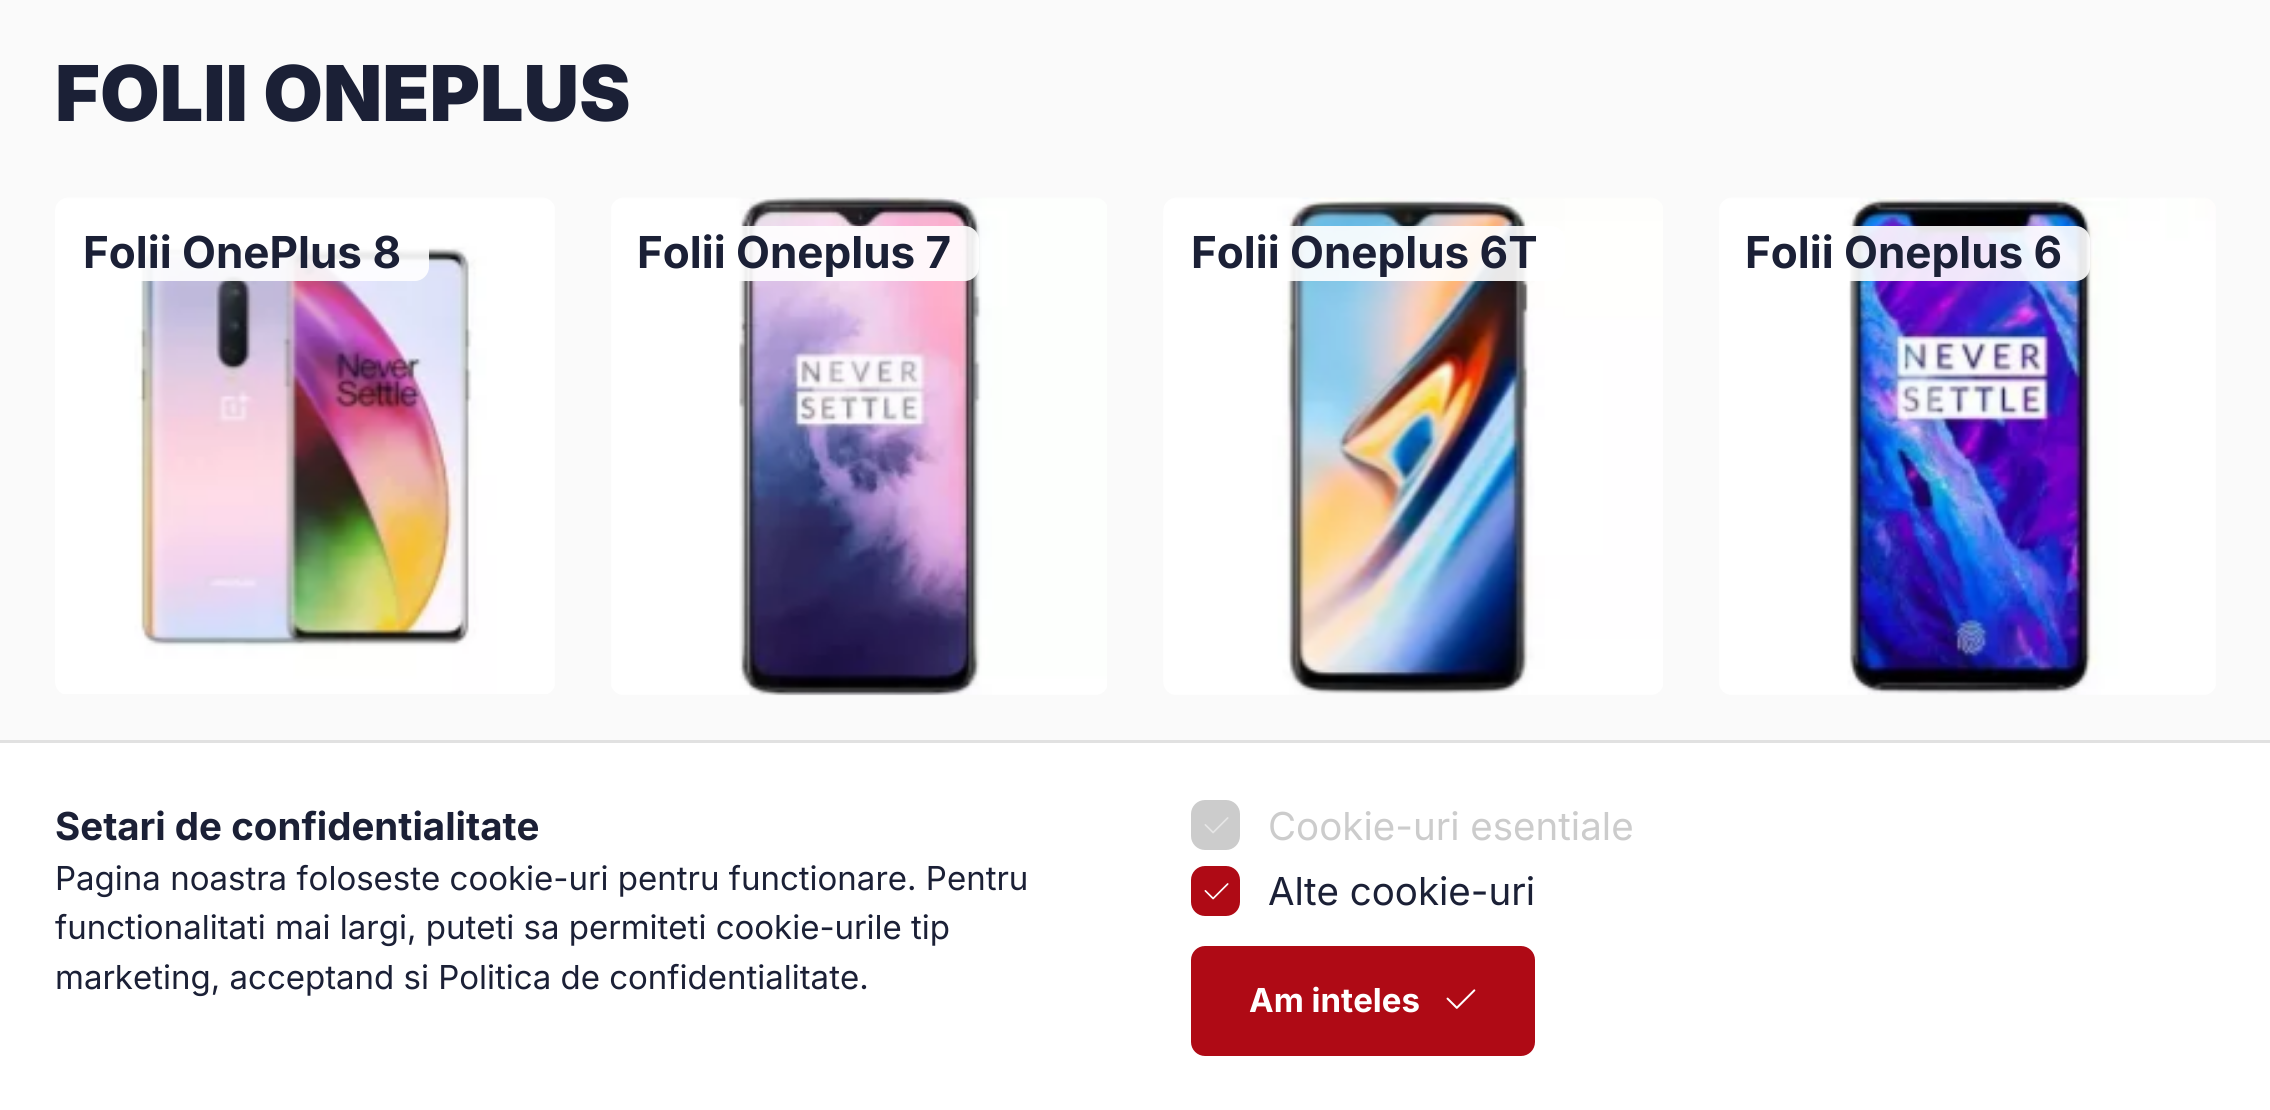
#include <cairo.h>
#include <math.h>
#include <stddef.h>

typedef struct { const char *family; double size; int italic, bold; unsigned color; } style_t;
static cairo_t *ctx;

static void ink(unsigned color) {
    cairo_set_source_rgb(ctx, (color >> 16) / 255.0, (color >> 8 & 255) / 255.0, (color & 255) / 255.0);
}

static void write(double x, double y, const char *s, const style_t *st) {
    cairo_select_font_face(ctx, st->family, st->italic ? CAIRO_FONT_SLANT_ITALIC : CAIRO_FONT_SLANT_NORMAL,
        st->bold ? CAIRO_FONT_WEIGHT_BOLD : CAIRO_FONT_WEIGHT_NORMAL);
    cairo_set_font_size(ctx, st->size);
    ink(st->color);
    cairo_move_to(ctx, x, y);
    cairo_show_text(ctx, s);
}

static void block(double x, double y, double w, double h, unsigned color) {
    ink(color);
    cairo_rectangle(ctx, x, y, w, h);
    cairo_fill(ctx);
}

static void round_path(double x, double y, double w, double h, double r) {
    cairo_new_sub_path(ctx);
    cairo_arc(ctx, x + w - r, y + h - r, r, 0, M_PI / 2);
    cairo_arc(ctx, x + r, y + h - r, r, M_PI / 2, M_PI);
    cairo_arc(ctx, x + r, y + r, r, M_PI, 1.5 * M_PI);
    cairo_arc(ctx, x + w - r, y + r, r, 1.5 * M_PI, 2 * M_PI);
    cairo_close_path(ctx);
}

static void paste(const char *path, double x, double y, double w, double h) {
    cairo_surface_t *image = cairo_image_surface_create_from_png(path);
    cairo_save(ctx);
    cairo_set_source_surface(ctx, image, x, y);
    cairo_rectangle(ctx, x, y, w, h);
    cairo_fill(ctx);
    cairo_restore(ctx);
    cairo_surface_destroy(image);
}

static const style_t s1 = {"Inter Black", 77, 0, 0, 0x1b2036};
static const style_t s2 = {"Inter", 44, 0, 1, 0x1b2036};
static const style_t s3 = {"Inter", 38.5, 0, 1, 0x1b2036};
static const style_t s4 = {"Inter", 33, 0, 0, 0x1b2036};
static const style_t s5 = {"Inter", 38.5, 0, 0, 0xcccccc};
static const style_t s6 = {"Inter", 38.5, 0, 0, 0x1b2036};
static const style_t s7 = {"Inter", 33, 0, 1, 0xffffff};

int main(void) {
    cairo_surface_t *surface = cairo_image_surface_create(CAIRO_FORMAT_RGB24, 2270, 1110);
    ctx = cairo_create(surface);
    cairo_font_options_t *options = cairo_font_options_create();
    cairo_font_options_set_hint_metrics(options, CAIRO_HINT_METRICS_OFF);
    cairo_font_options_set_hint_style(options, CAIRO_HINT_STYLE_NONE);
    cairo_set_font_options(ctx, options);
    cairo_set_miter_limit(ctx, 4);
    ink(0xfafafa);
    cairo_paint(ctx);
    write(55, 121, "FOLII ONEPLUS", &s1);
    paste("pic1.png", 55, 197, 500, 497);
    cairo_set_source_rgba(ctx, 1, 1, 1, 0.9);
    cairo_new_path(ctx);
    cairo_move_to(ctx, 55, 226);
    cairo_line_to(ctx, 415, 226);
    cairo_curve_to(ctx, 422.5, 226, 429, 232.5, 429, 240);
    cairo_line_to(ctx, 429, 267);
    cairo_curve_to(ctx, 429, 274.5, 422.5, 281, 415, 281);
    cairo_line_to(ctx, 55, 281);
    cairo_close_path(ctx);
    cairo_fill(ctx);
    write(83, 268, "Folii OnePlus 8", &s2);
    paste("pic2.png", 611, 197, 496, 499);
    cairo_set_source_rgba(ctx, 1, 1, 1, 0.9);
    cairo_new_path(ctx);
    cairo_move_to(ctx, 611, 226);
    cairo_line_to(ctx, 965, 226);
    cairo_curve_to(ctx, 972.5, 226, 979, 232.5, 979, 240);
    cairo_line_to(ctx, 979, 267);
    cairo_curve_to(ctx, 979, 274.5, 972.5, 281, 965, 281);
    cairo_line_to(ctx, 611, 281);
    cairo_close_path(ctx);
    cairo_fill(ctx);
    write(637, 268, "Folii Oneplus 7", &s2);
    paste("pic3.png", 1163, 197, 500, 498);
    cairo_set_source_rgba(ctx, 1, 1, 1, 0.9);
    cairo_new_path(ctx);
    cairo_move_to(ctx, 1163, 226);
    cairo_line_to(ctx, 1551, 226);
    cairo_curve_to(ctx, 1558.5, 226, 1565, 232.5, 1565, 240);
    cairo_line_to(ctx, 1565, 267);
    cairo_curve_to(ctx, 1565, 274.5, 1558.5, 281, 1551, 281);
    cairo_line_to(ctx, 1163, 281);
    cairo_close_path(ctx);
    cairo_fill(ctx);
    write(1191, 268, "Folii Oneplus 6T", &s2);
    paste("pic4.png", 1719, 197, 497, 498);
    cairo_set_source_rgba(ctx, 1, 1, 1, 0.9);
    cairo_new_path(ctx);
    cairo_move_to(ctx, 1719, 226);
    cairo_line_to(ctx, 2076, 226);
    cairo_curve_to(ctx, 2083.5, 226, 2090, 232.5, 2090, 240);
    cairo_line_to(ctx, 2090, 267);
    cairo_curve_to(ctx, 2090, 274.5, 2083.5, 281, 2076, 281);
    cairo_line_to(ctx, 1719, 281);
    cairo_close_path(ctx);
    cairo_fill(ctx);
    write(1745, 268, "Folii Oneplus 6", &s2);
    block(0, 743, 2270, 367, 0xffffff);
    block(0, 740, 2270, 3, 0xe1e1e1);
    write(55, 840, "Setari de confidentialitate", &s3);
    write(55, 890, "Pagina noastra foloseste cookie-uri pentru functionare. Pentru", &s4);
    write(55, 939, "functionalitati mai largi, puteti sa permiteti cookie-urile tip", &s4);
    write(55, 989, "marketing, acceptand si Politica de confidentialitate.", &s4);
    ink(0xcccccc);
    round_path(1192.5, 801.5, 46, 47, 12.5);
    cairo_fill_preserve(ctx);
    cairo_set_line_width(ctx, 3);
    cairo_stroke(ctx);
    paste("pic5.png", 1204, 817, 25, 17);
    write(1268, 840, "Cookie-uri esentiale", &s5);
    ink(0xaf0a15);
    round_path(1192.5, 867.5, 46, 47, 12.5);
    cairo_fill_preserve(ctx);
    cairo_stroke(ctx);
    paste("pic6.png", 1204, 883, 25, 17);
    write(1268, 905, "Alte cookie-uri", &s6);
    ink(0xaf0a15);
    round_path(1192.5, 947.5, 341, 107, 12.5);
    cairo_fill_preserve(ctx);
    cairo_stroke(ctx);
    write(1249, 1012, "Am inteles", &s7);
    paste("pic7.png", 1446, 989, 30, 20);
    cairo_surface_write_to_png(surface, "screenshot.png");
    cairo_font_options_destroy(options);
    cairo_destroy(ctx);
    cairo_surface_destroy(surface);
    return 0;
}
